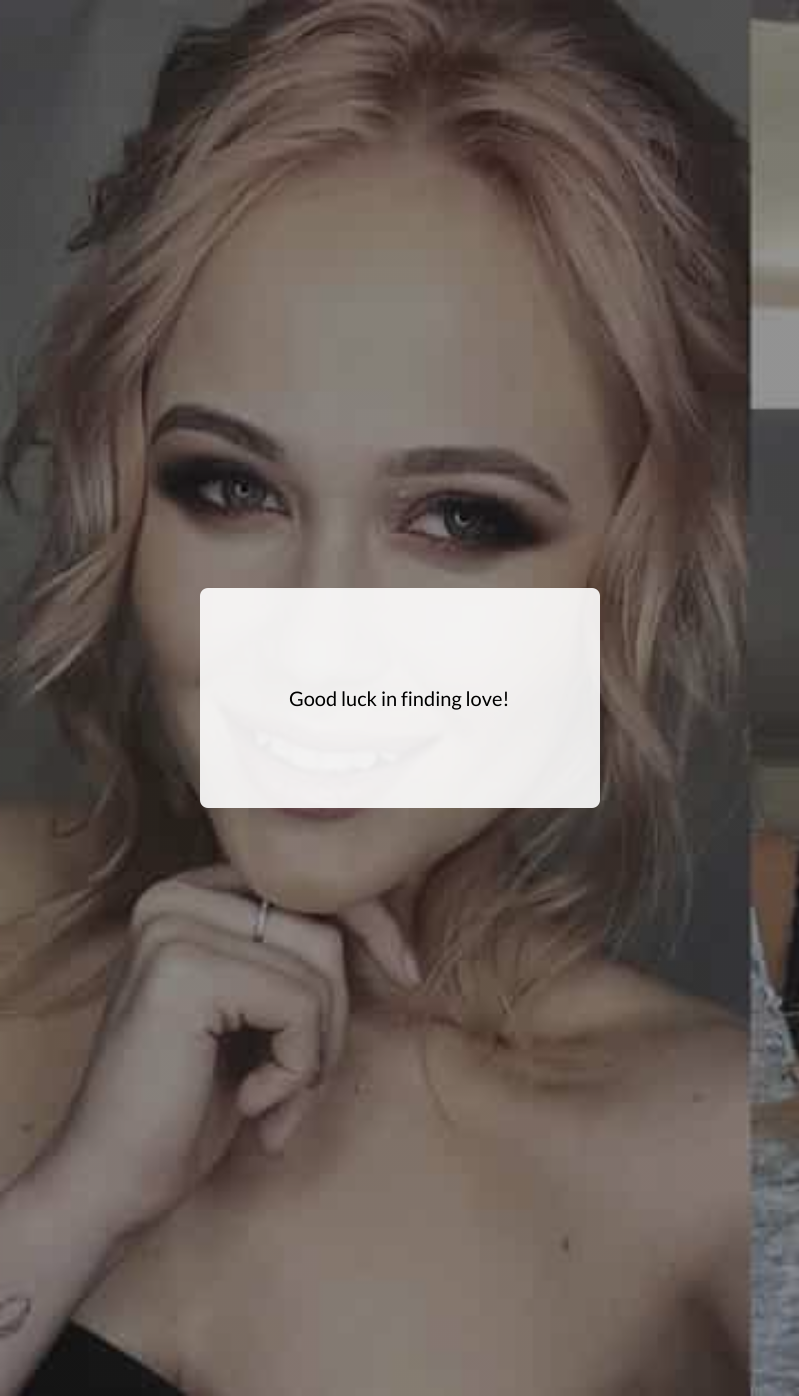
#include <cairo.h>
#include <math.h>
#include <stddef.h>

typedef struct { const char *family; double size; int italic, bold; unsigned color; } style_t;
static cairo_t *ctx;

static void ink(unsigned color) {
    cairo_set_source_rgb(ctx, (color >> 16) / 255.0, (color >> 8 & 255) / 255.0, (color & 255) / 255.0);
}

static void write(double x, double y, const char *s, const style_t *st) {
    cairo_select_font_face(ctx, st->family, st->italic ? CAIRO_FONT_SLANT_ITALIC : CAIRO_FONT_SLANT_NORMAL,
        st->bold ? CAIRO_FONT_WEIGHT_BOLD : CAIRO_FONT_WEIGHT_NORMAL);
    cairo_set_font_size(ctx, st->size);
    ink(st->color);
    cairo_move_to(ctx, x, y);
    cairo_show_text(ctx, s);
}

static void round_path(double x, double y, double w, double h, double r) {
    cairo_new_sub_path(ctx);
    cairo_arc(ctx, x + w - r, y + h - r, r, 0, M_PI / 2);
    cairo_arc(ctx, x + r, y + h - r, r, M_PI / 2, M_PI);
    cairo_arc(ctx, x + r, y + r, r, M_PI, 1.5 * M_PI);
    cairo_arc(ctx, x + w - r, y + r, r, 1.5 * M_PI, 2 * M_PI);
    cairo_close_path(ctx);
}

static void paste(const char *path, double x, double y, double w, double h) {
    cairo_surface_t *image = cairo_image_surface_create_from_png(path);
    cairo_save(ctx);
    cairo_set_source_surface(ctx, image, x, y);
    cairo_rectangle(ctx, x, y, w, h);
    cairo_fill(ctx);
    cairo_restore(ctx);
    cairo_surface_destroy(image);
}

static const style_t s1 = {"Lato", 20, 0, 0, 0x000000};

int main(void) {
    cairo_surface_t *surface = cairo_image_surface_create(CAIRO_FORMAT_RGB24, 799, 1396);
    ctx = cairo_create(surface);
    cairo_font_options_t *options = cairo_font_options_create();
    cairo_font_options_set_hint_metrics(options, CAIRO_HINT_METRICS_OFF);
    cairo_font_options_set_hint_style(options, CAIRO_HINT_STYLE_NONE);
    cairo_set_font_options(ctx, options);
    cairo_set_miter_limit(ctx, 4);
    ink(0xffffff);
    cairo_paint(ctx);
    paste("pic1.png", 0, 0, 799, 1396);
    cairo_set_source_rgba(ctx, 1, 1, 1, 0.9);
    round_path(200, 588, 400, 220, 8);
    cairo_fill(ctx);
    write(289, 706, "Good luck in finding love!", &s1);
    cairo_surface_write_to_png(surface, "screenshot.png");
    cairo_font_options_destroy(options);
    cairo_destroy(ctx);
    cairo_surface_destroy(surface);
    return 0;
}
